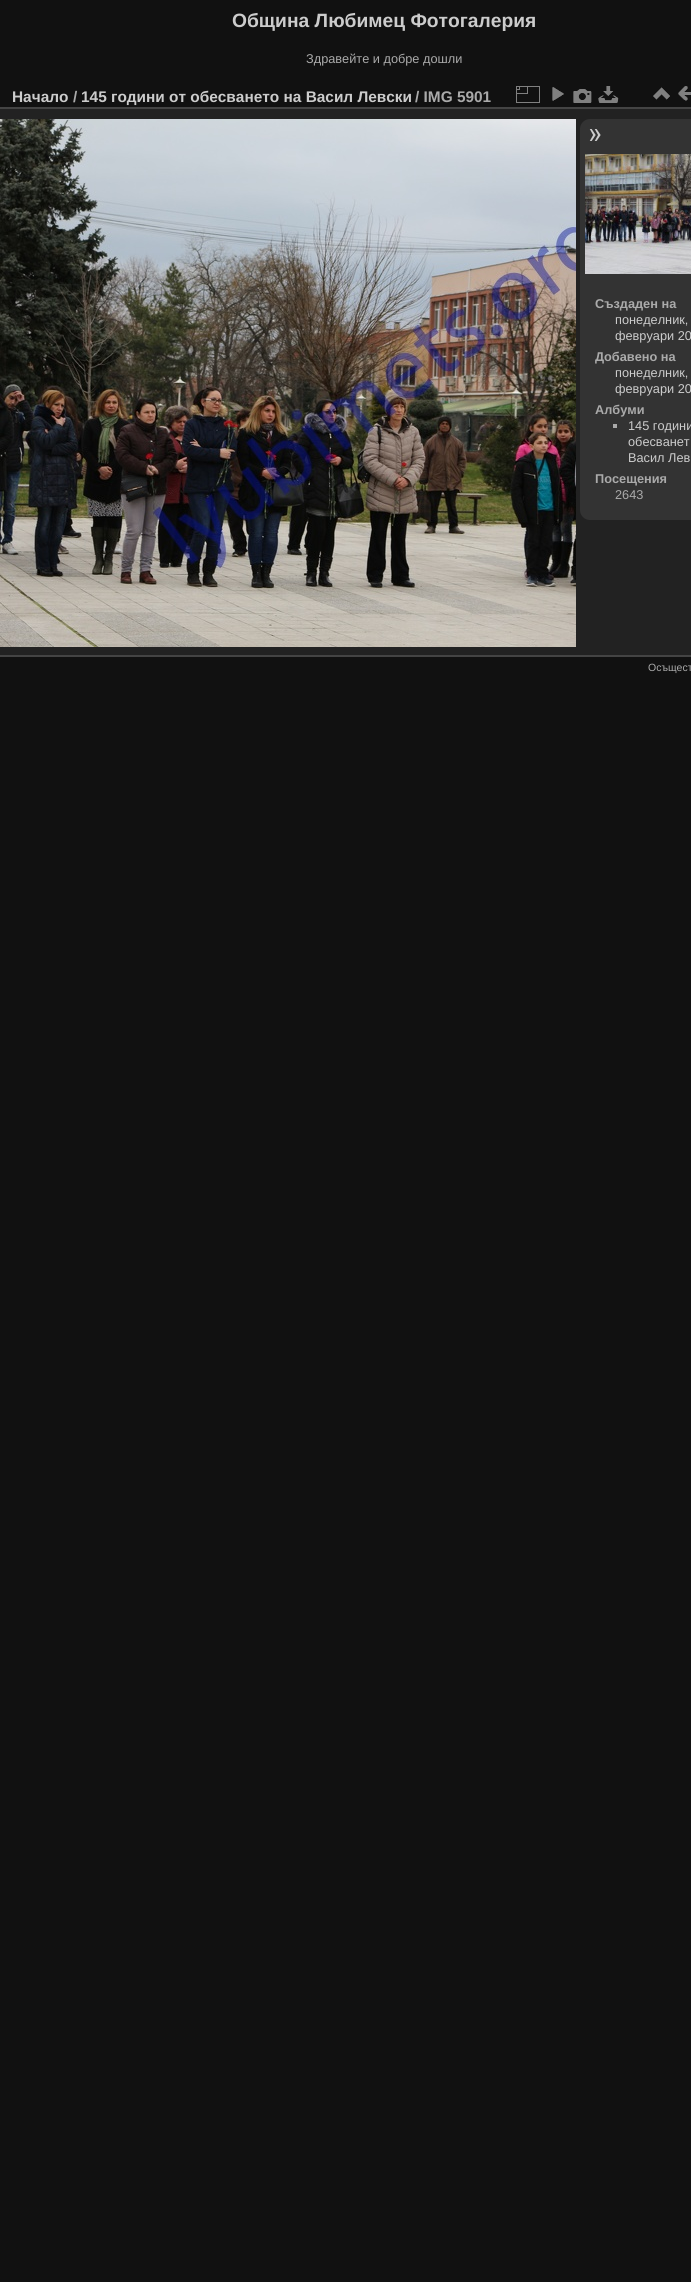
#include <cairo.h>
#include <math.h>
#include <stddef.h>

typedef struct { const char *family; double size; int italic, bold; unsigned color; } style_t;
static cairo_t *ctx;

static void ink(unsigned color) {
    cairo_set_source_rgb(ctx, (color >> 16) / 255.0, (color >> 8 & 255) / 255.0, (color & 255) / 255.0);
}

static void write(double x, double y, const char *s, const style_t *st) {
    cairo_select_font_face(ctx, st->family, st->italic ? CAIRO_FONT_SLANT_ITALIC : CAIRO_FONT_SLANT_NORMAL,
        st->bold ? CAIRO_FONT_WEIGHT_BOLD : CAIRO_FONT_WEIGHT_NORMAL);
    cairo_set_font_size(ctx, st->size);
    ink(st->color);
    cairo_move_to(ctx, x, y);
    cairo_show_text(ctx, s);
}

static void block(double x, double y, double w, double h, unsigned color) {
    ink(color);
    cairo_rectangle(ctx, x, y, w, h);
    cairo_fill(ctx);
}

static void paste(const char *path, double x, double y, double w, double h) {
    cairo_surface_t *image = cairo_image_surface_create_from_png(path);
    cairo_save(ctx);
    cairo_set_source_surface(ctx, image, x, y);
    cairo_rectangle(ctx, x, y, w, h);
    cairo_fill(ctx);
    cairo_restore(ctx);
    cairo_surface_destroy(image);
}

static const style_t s1 = {"Liberation Sans", 19.25, 0, 1, 0xcccccc};
static const style_t s2 = {"Liberation Sans", 12.75, 0, 0, 0xaaaaaa};
static const style_t s3 = {"Liberation Sans", 15.4, 0, 1, 0xcccccc};
static const style_t s4 = {"Liberation Sans", 15.4, 0, 1, 0xaaaaaa};
static const style_t s5 = {"Liberation Sans", 12.75, 0, 1, 0xaaaaaa};
static const style_t s6 = {"Liberation Sans", 12.75, 0, 0, 0xcccccc};
static const style_t s7 = {"Liberation Sans", 10.5, 0, 0, 0xaaaaaa};

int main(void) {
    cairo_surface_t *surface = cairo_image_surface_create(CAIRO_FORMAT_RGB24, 691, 2282);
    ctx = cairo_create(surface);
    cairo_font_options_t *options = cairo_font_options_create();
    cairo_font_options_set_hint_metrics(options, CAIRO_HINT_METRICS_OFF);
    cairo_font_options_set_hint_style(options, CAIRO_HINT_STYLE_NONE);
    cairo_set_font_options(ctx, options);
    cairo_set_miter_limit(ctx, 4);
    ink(0x111111);
    cairo_paint(ctx);
    write(232, 27, "Община Любимец Фотогалерия", &s1);
    write(306, 63, "Здравейте и добре дошли", &s2);
    block(0, 109, 691, 546, 0x222222);
    block(0, 655, 691, 2, 0x444444);
    block(0, 107, 691, 2, 0x444444);
    write(12, 102, "Начало", &s3);
    write(73, 102, "/", &s4);
    write(81, 102, "145 години от обесването на Васил Левски", &s3);
    write(415, 102, "/ IMG 5901", &s4);
    paste("pic1.png", 516, 86, 24, 17);
    paste("pic2.png", 552, 87, 12, 14);
    paste("pic3.png", 573, 89, 19, 14);
    paste("pic4.png", 598, 86, 21, 17);
    paste("pic5.png", 653, 87, 17, 13);
    paste("pic6.png", 678, 86, 13, 15);
    paste("pic7.png", 0, 119, 576, 528);
    ink(0x333333);
    cairo_new_path(ctx);
    cairo_move_to(ctx, 590, 119);
    cairo_line_to(ctx, 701, 119);
    cairo_line_to(ctx, 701, 520);
    cairo_line_to(ctx, 590, 520);
    cairo_curve_to(ctx, 584.5, 520, 580, 515.5, 580, 510);
    cairo_line_to(ctx, 580, 129);
    cairo_curve_to(ctx, 580, 123.5, 584.5, 119, 590, 119);
    cairo_close_path(ctx);
    cairo_fill(ctx);
    paste("pic8.png", 589, 129, 12, 12);
    paste("pic9.png", 585, 154, 106, 120);
    write(595, 308, "Създаден на", &s5);
    write(615, 324, "понеделник,", &s6);
    write(615, 340, "февруари 20", &s6);
    write(595, 361, "Добавено на", &s5);
    write(615, 377, "понеделник,", &s6);
    write(615, 393, "февруари 20", &s6);
    write(595, 414, "Албуми", &s5);
    block(613, 424, 4, 4, 0xaaaaaa);
    write(628, 430, "145 години", &s6);
    write(628, 446, "обесванет", &s6);
    write(628, 462, "Васил Лев", &s6);
    write(595, 483, "Посещения", &s5);
    write(615, 499, "2643", &s2);
    write(648, 671, "Осъщест", &s7);
    cairo_surface_write_to_png(surface, "screenshot.png");
    cairo_font_options_destroy(options);
    cairo_destroy(ctx);
    cairo_surface_destroy(surface);
    return 0;
}
